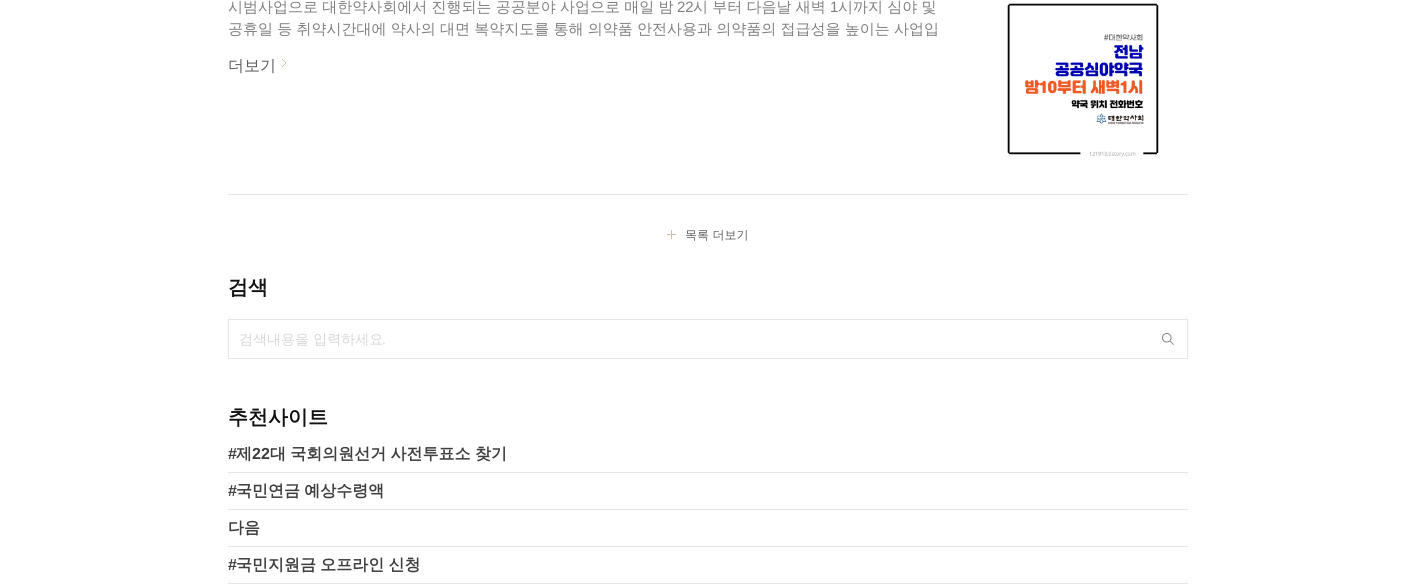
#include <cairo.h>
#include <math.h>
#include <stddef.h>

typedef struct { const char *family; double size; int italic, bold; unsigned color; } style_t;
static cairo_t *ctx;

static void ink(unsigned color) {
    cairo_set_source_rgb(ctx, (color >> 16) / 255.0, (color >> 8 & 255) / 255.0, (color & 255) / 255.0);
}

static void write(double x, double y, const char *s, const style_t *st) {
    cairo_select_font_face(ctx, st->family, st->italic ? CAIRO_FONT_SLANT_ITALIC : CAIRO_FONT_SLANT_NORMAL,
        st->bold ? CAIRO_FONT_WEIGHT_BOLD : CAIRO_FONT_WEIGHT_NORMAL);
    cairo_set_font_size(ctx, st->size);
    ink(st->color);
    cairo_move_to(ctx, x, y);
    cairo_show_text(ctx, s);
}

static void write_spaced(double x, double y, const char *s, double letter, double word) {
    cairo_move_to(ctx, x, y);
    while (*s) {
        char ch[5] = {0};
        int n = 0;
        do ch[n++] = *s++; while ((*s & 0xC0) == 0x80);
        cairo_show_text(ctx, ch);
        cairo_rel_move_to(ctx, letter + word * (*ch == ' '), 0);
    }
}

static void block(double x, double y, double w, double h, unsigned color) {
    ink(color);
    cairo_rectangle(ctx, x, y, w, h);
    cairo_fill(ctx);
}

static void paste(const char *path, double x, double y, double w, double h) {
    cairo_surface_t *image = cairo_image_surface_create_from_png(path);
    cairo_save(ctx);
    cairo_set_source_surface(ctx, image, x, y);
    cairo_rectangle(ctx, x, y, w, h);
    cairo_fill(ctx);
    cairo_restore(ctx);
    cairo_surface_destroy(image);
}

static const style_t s1 = {"Liberation Sans", 15, 0, 0, 0x7f7f7f};
static const style_t s2 = {"WenQuanYi Zen Hei Medium", 16, 0, 0, 0x5f5f5f};
static const style_t s3 = {"WenQuanYi Zen Hei Medium", 12, 0, 0, 0x5f5f5f};
static const style_t s4 = {"WenQuanYi Zen Hei", 20, 0, 1, 0x111111};
static const style_t s5 = {"WenQuanYi Zen Hei Medium", 14, 0, 0, 0xd6d6d6};
static const style_t s6 = {"Liberation Sans", 14, 0, 0, 0xd6d6d6};
static const style_t s7 = {"Liberation Sans", 16, 0, 1, 0x3f3f3f};
static const style_t s8 = {"WenQuanYi Zen Hei", 16, 0, 1, 0x3f3f3f};

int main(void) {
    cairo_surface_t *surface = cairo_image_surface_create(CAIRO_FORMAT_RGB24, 1415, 587);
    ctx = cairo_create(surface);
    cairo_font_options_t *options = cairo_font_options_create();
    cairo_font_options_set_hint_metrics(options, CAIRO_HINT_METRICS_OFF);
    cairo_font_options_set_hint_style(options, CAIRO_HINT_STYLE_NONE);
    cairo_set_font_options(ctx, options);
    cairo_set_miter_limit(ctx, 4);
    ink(0xffffff);
    cairo_paint(ctx);
    block(228, 194, 960, 1, 0xe6e6e6);
    cairo_select_font_face(ctx, "WenQuanYi Zen Hei Medium", CAIRO_FONT_SLANT_NORMAL, CAIRO_FONT_WEIGHT_NORMAL);
    cairo_set_font_size(ctx, 15);
    ink(0x7f7f7f);
    write_spaced(228, 12, "시범사업으로 대한약사회에서 진행되는 공공분야 사업으로 매일 밤", 0, -0.25);
    write(677, 12, "22", &s1);
    cairo_select_font_face(ctx, "WenQuanYi Zen Hei Medium", CAIRO_FONT_SLANT_NORMAL, CAIRO_FONT_WEIGHT_NORMAL);
    write_spaced(693, 12, "시 부터 다음날 새벽", 0, -0.25);
    write(830, 12, "1", &s1);
    cairo_select_font_face(ctx, "WenQuanYi Zen Hei Medium", CAIRO_FONT_SLANT_NORMAL, CAIRO_FONT_WEIGHT_NORMAL);
    write_spaced(838, 12, "시까지 심야 및", 0, -0.25);
    write_spaced(228, 34, "공휴일 등 취약시간대에 약사의 대면 복약지도를 통해 의약품 안전사용과 의약품의 접급성을 높이는 사업입", 0, -0.25);
    paste("pic1.png", 1007, 3, 152, 154);
    write(228, 71, "더보기", &s2);
    paste("pic2.png", 282, 59, 4, 8);
    paste("pic3.png", 667, 230, 9, 9);
    write(685, 239, "목록 더보기", &s3);
    write(228, 294, "검색", &s4);
    cairo_rectangle(ctx, 228.5, 319.5, 959, 39);
    ink(0xe6e6e6);
    cairo_set_line_width(ctx, 1);
    cairo_stroke(ctx);
    write(239, 344, "검색내용을 입력하세요", &s5);
    write(382, 344, ".", &s6);
    paste("pic4.png", 1162, 333, 12, 12);
    write(228, 424, "추천사이트", &s4);
    block(228, 472, 960, 1, 0xe6e6e6);
    write(228, 459, "#", &s7);
    write(236, 459, "제", &s8);
    write(252, 459, "22", &s7);
    cairo_select_font_face(ctx, "WenQuanYi Zen Hei", CAIRO_FONT_SLANT_NORMAL, CAIRO_FONT_WEIGHT_BOLD);
    write_spaced(270, 459, "대 국회의원선거 사전투표소 찾기", 0, -0.5);
    block(228, 509, 960, 1, 0xe6e6e6);
    write(228, 496, "#", &s7);
    cairo_select_font_face(ctx, "WenQuanYi Zen Hei", CAIRO_FONT_SLANT_NORMAL, CAIRO_FONT_WEIGHT_BOLD);
    write_spaced(236, 496, "국민연금 예상수령액", 0, -0.5);
    block(228, 546, 960, 1, 0xe6e6e6);
    write(228, 533, "다음", &s8);
    block(228, 583, 960, 1, 0xe6e6e6);
    write(228, 570, "#", &s7);
    cairo_select_font_face(ctx, "WenQuanYi Zen Hei", CAIRO_FONT_SLANT_NORMAL, CAIRO_FONT_WEIGHT_BOLD);
    write_spaced(236, 570, "국민지원금 오프라인 신청", 0, -0.5);
    cairo_surface_write_to_png(surface, "screenshot.png");
    cairo_font_options_destroy(options);
    cairo_destroy(ctx);
    cairo_surface_destroy(surface);
    return 0;
}
